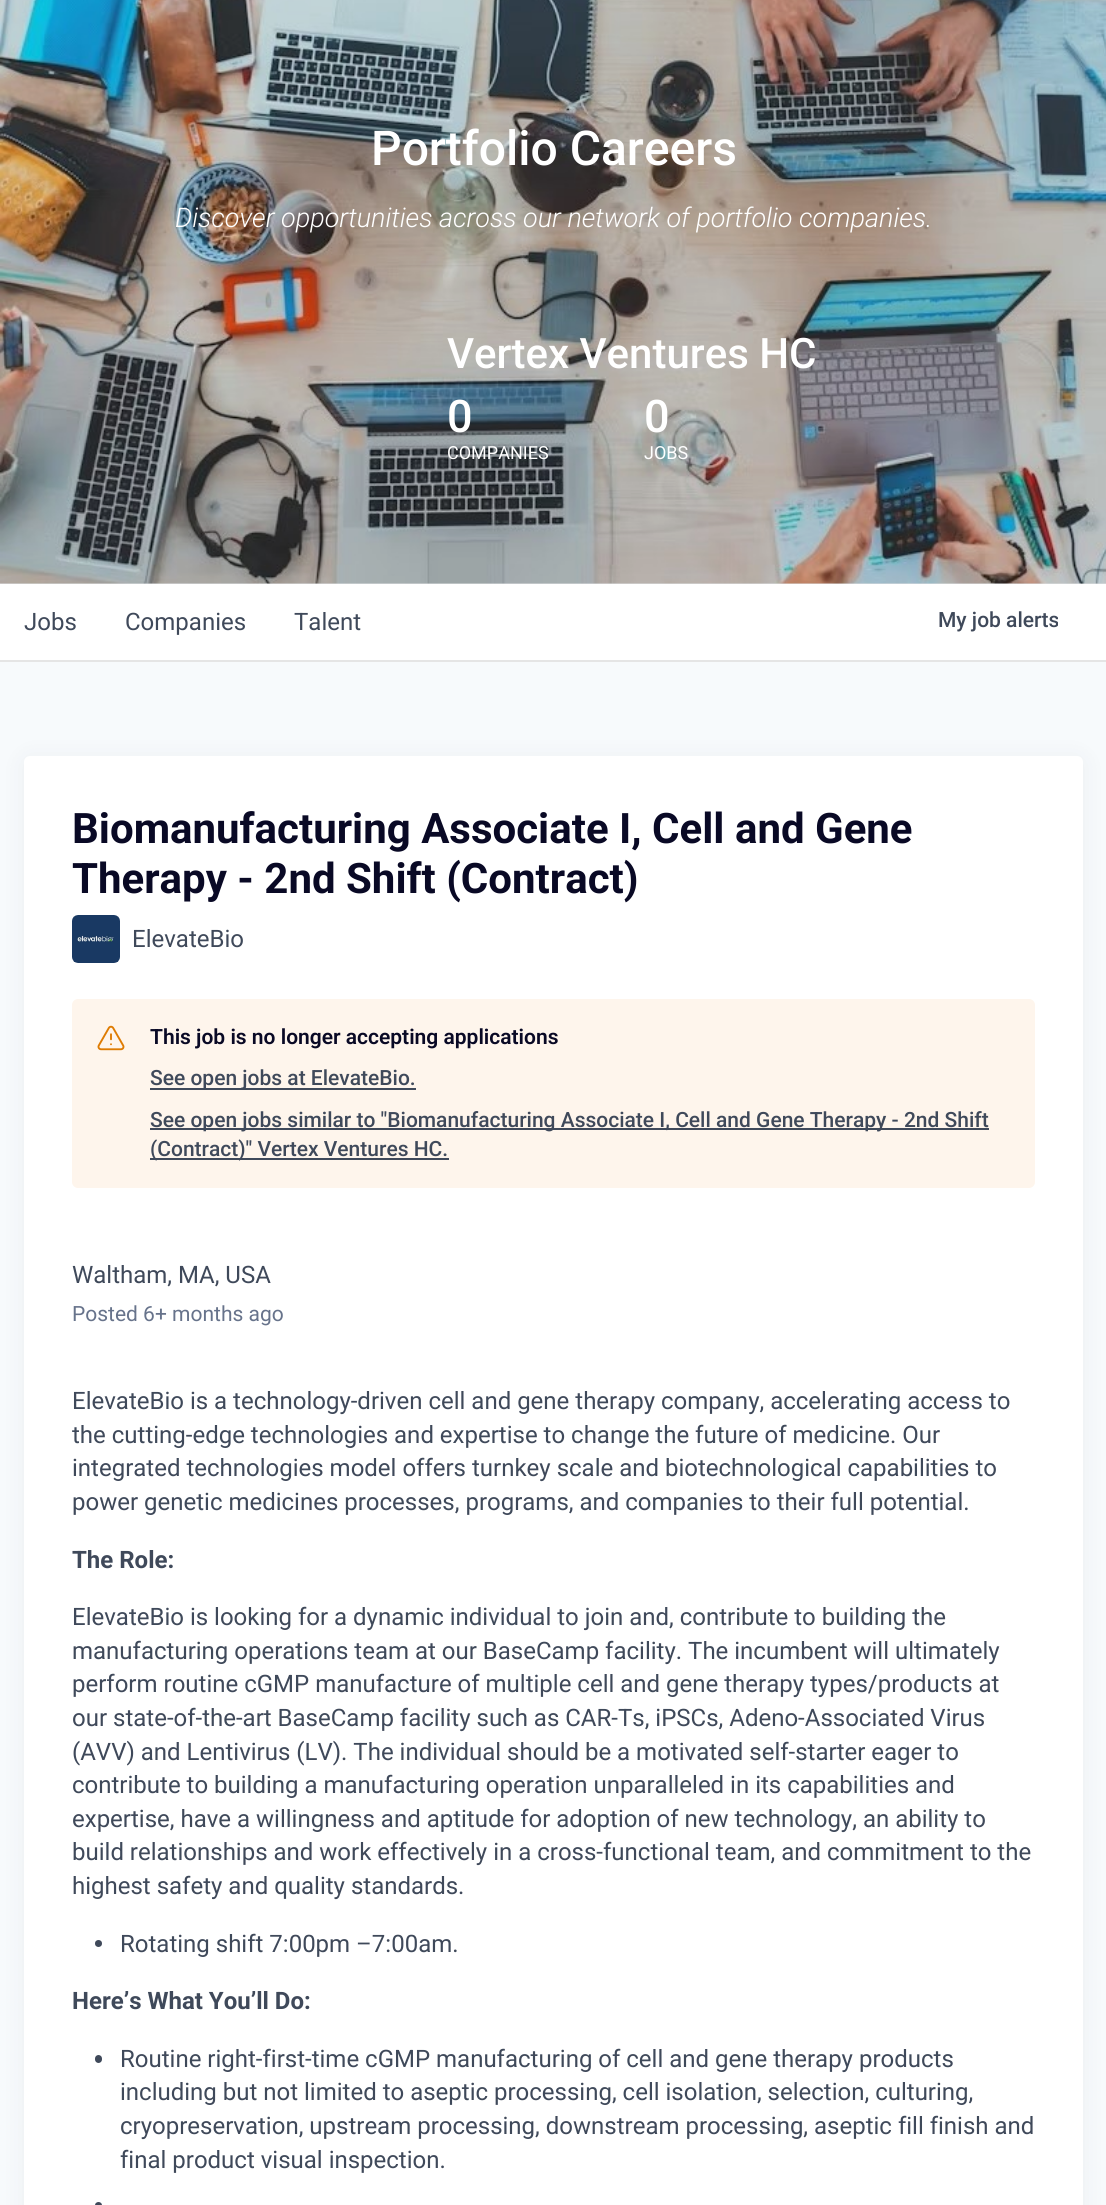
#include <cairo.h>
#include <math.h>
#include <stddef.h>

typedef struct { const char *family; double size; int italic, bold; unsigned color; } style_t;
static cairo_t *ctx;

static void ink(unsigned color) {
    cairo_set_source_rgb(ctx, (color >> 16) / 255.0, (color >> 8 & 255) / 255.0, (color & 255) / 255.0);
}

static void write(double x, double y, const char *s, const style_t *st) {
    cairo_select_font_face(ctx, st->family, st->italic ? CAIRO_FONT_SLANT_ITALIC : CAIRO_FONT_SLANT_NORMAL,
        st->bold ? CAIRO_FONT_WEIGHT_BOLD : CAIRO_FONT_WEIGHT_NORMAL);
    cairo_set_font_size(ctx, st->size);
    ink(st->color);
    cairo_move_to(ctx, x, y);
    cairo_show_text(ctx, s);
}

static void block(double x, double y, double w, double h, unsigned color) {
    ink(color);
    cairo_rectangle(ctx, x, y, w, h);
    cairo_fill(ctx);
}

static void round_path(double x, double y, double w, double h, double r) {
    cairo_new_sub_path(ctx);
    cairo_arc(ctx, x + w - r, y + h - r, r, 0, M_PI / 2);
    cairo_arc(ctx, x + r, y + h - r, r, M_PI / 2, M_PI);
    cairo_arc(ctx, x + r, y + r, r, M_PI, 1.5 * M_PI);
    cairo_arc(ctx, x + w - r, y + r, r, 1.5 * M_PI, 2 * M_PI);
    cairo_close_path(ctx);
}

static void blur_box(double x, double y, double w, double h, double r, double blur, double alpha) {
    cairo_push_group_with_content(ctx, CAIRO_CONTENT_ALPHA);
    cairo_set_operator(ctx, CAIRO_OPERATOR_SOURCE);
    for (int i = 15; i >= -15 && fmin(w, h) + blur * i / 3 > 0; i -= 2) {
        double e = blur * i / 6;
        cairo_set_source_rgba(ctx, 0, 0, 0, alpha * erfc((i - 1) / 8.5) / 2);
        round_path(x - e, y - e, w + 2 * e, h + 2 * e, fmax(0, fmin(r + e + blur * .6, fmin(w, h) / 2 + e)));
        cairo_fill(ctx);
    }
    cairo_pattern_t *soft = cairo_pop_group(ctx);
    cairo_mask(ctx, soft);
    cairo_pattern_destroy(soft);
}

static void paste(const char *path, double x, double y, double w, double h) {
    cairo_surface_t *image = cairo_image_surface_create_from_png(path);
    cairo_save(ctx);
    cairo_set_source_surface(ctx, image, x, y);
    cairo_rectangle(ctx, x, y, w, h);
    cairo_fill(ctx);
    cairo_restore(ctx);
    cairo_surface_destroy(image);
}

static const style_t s1 = {"Roboto Medium", 48, 0, 0, 0xffffff};
static const style_t s2 = {"Roboto Light", 27, 1, 0, 0xffffff};
static const style_t s3 = {"Roboto Medium", 42, 0, 0, 0xffffff};
static const style_t s4 = {"Roboto Medium", 45, 0, 0, 0xffffff};
static const style_t s5 = {"Roboto", 18, 0, 0, 0xffffff};
static const style_t s6 = {"Roboto", 24, 0, 0, 0x3f495a};
static const style_t s7 = {"Roboto Medium", 21, 0, 0, 0x3f495a};
static const style_t s8 = {"Roboto", 42, 0, 1, 0x090925};
static const style_t s9 = {"Roboto SemiBold", 21, 0, 0, 0x090925};
static const style_t s10 = {"Roboto", 21, 0, 0, 0x67738b};
static const style_t s11 = {"Roboto", 24, 0, 1, 0x3f495a};

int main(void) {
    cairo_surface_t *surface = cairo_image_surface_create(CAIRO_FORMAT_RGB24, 1106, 2205);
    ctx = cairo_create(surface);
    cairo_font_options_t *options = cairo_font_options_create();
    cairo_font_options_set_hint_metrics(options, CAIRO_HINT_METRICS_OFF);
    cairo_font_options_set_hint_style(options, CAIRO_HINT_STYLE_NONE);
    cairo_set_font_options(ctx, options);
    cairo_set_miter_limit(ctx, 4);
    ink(0xf7fafc);
    cairo_paint(ctx);
    block(0, 583, 1106, 1, 0xdee1e3);
    paste("pic1.png", 0, 0, 1106, 584);
    write(371, 165, "Portfolio Careers", &s1);
    write(175, 227, "Discover opportunities across our network of portfolio companies.", &s2);
    write(447, 368, "Vertex Ventures HC", &s3);
    write(447, 432, "0", &s4);
    write(447, 459, "COMPANIES", &s5);
    write(644, 432, "0", &s4);
    write(644, 459, "JOBS", &s5);
    block(0, 660, 1106, 2, 0xe5e5e5);
    block(0, 584, 1106, 76, 0xffffff);
    write(24, 630, "Jobs", &s6);
    write(125, 630, "Companies", &s6);
    write(294, 630, "Talent", &s6);
    write(938, 627, "My job alerts", &s7);
    ink(0x1b2432);
    blur_box(24, 758, 1059, 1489, 6, 12, 0.06);
    ink(0xffffff);
    round_path(24, 756, 1059, 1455, 6);
    cairo_fill(ctx);
    write(72, 843, "Biomanufacturing Associate I, Cell and Gene", &s8);
    write(72, 893, "Therapy - 2nd Shift (Contract)", &s8);
    paste("pic2.png", 72, 915, 48, 48);
    write(132, 947, "ElevateBio", &s6);
    ink(0xfef5ec);
    round_path(72, 999, 963, 189, 6);
    cairo_fill(ctx);
    paste("pic3.png", 97, 1025, 28, 26);
    write(150, 1044, "This job is no longer accepting applications", &s9);
    block(150, 1088, 266, 2, 0x3f495a);
    write(150, 1085, "See open jobs at ElevateBio.", &s7);
    block(150, 1128, 839, 2, 0x3f495a);
    write(150, 1127, "See open jobs similar to \"Biomanufacturing Associate I, Cell and Gene Therapy - 2nd Shift", &s7);
    block(150, 1158, 299, 2, 0x3f495a);
    write(150, 1156, "(Contract)\" Vertex Ventures HC.", &s7);
    write(72, 1283, "Waltham, MA, USA", &s6);
    write(72, 1321, "Posted 6+ months ago", &s10);
    write(72, 1409, "ElevateBio is a technology-driven cell and gene therapy company, accelerating access to", &s6);
    write(72, 1443, "the cutting-edge technologies and expertise to change the future of medicine. Our", &s6);
    write(72, 1476, "integrated technologies model offers turnkey scale and biotechnological capabilities to", &s6);
    write(72, 1510, "power genetic medicines processes, programs, and companies to their full potential.", &s6);
    write(72, 1568, "The Role:", &s11);
    write(72, 1625, "ElevateBio is looking for a dynamic individual to join and, contribute to building the", &s6);
    write(72, 1659, "manufacturing operations team at our BaseCamp facility. The incumbent will ultimately", &s6);
    write(72, 1692, "perform routine cGMP manufacture of multiple cell and gene therapy types/products at", &s6);
    write(72, 1726, "our state-of-the-art BaseCamp facility such as CAR-Ts, iPSCs, Adeno-Associated Virus", &s6);
    write(72, 1760, "(AVV) and Lentivirus (LV). The individual should be a motivated self-starter eager to", &s6);
    write(72, 1793, "contribute to building a manufacturing operation unparalleled in its capabilities and", &s6);
    write(72, 1827, "expertise, have a willingness and aptitude for adoption of new technology, an ability to", &s6);
    write(72, 1860, "build relationships and work effectively in a cross-functional team, and commitment to the", &s6);
    write(72, 1894, "highest safety and quality standards.", &s6);
    cairo_new_path(ctx);
    cairo_arc(ctx, 98.5, 1943.5, 3.5, 0, 2 * M_PI);
    cairo_fill(ctx);
    write(120, 1952, "Rotating shift 7:00pm –7:00am.", &s6);
    write(72, 2009, "Here’s What You’ll Do:", &s11);
    round_path(95, 2055, 7, 8, 3.5);
    cairo_fill(ctx);
    write(120, 2067, "Routine right-first-time cGMP manufacturing of cell and gene therapy products", &s6);
    write(120, 2100, "including but not limited to aseptic processing, cell isolation, selection, culturing,", &s6);
    write(120, 2134, "cryopreservation, upstream processing, downstream processing, aseptic fill finish and", &s6);
    write(120, 2168, "final product visual inspection.", &s6);
    cairo_new_path(ctx);
    cairo_arc(ctx, 98.5, 2205.5, 3.5, 0, 2 * M_PI);
    cairo_fill(ctx);
    cairo_surface_write_to_png(surface, "screenshot.png");
    cairo_font_options_destroy(options);
    cairo_destroy(ctx);
    cairo_surface_destroy(surface);
    return 0;
}
